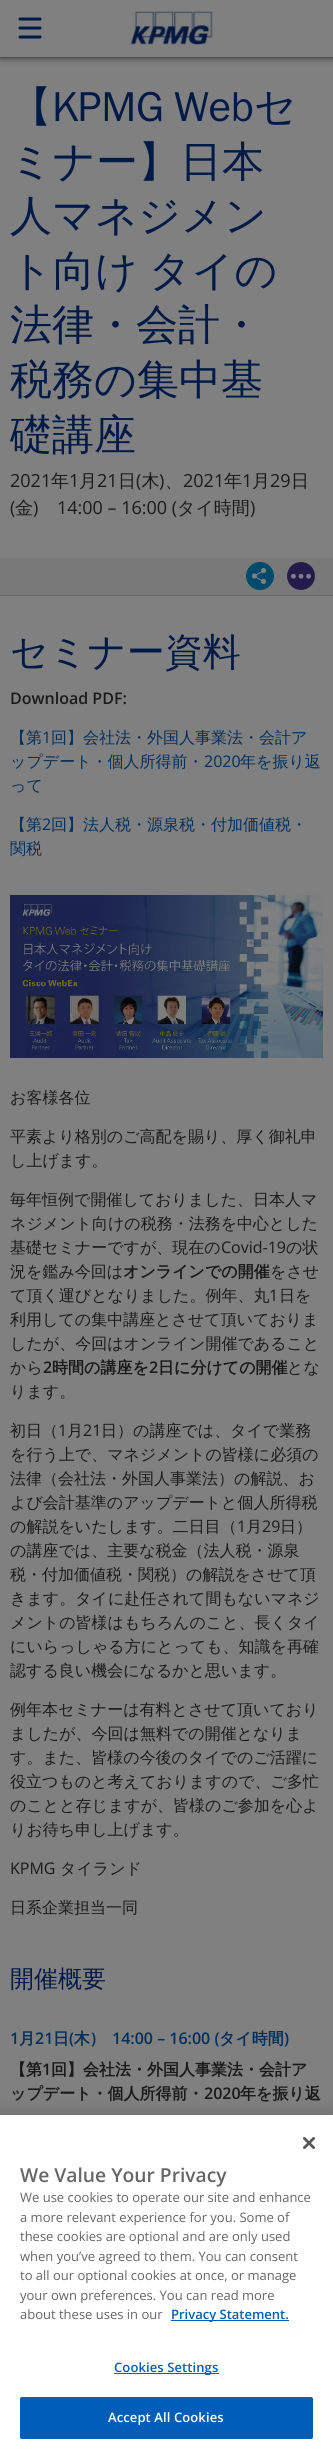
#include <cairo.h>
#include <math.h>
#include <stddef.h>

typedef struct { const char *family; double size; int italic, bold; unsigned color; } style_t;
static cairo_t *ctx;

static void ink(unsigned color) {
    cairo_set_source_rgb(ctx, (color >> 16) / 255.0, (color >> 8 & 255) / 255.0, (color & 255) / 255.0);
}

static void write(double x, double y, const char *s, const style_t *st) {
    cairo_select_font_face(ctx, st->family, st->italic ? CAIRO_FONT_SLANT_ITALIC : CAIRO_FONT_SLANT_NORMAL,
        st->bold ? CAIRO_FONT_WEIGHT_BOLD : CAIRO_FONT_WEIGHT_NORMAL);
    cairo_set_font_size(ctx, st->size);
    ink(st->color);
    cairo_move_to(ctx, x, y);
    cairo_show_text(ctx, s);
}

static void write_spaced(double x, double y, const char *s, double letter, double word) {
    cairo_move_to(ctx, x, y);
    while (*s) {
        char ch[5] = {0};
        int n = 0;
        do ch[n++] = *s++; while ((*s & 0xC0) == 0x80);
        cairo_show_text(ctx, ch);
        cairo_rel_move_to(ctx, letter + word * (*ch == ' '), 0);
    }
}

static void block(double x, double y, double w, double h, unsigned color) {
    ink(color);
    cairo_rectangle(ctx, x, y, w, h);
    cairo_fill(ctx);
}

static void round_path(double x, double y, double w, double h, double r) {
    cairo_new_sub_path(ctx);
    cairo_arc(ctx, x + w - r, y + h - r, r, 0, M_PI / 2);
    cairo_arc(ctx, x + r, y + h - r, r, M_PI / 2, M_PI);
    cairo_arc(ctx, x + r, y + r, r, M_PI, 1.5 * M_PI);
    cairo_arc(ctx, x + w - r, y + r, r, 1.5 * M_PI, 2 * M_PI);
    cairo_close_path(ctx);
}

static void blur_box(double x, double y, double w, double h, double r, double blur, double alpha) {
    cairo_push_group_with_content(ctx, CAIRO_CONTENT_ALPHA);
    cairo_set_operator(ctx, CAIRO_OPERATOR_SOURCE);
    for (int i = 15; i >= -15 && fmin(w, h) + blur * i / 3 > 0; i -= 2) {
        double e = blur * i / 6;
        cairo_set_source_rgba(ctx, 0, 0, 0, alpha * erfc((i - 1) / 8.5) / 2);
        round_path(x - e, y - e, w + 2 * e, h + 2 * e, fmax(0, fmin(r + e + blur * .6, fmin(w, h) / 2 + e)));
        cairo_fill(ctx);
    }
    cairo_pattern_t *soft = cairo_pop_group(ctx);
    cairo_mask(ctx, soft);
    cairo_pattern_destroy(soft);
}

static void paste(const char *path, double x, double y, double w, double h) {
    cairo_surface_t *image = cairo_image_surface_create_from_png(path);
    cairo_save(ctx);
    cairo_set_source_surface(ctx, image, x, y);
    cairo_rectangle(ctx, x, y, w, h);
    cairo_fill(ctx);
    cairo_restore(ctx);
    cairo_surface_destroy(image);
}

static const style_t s1 = {"WenQuanYi Zen Hei Medium", 42, 0, 0, 0x001a47};
static const style_t s2 = {"Open Sans", 18, 0, 0, 0x1a1a1a};
static const style_t s3 = {"WenQuanYi Zen Hei Medium", 18, 0, 0, 0x1a1a1a};
static const style_t s4 = {"WenQuanYi Zen Hei Medium", 38, 0, 0, 0x001a47};
static const style_t s5 = {"Open Sans SemiBold", 16, 0, 0, 0x1a1a1a};
static const style_t s6 = {"WenQuanYi Zen Hei Medium", 16, 0, 0, 0x002f5c};
static const style_t s7 = {"Open Sans", 16, 0, 0, 0x002f5c};
static const style_t s8 = {"WenQuanYi Zen Hei Medium", 16, 0, 0, 0x1a1a1a};
static const style_t s9 = {"Open Sans", 16, 0, 0, 0x1a1a1a};
static const style_t s10 = {"WenQuanYi Zen Hei", 16, 0, 1, 0x1a1a1a};
static const style_t s11 = {"WenQuanYi Zen Hei Medium", 24, 0, 0, 0x001a47};
static const style_t s12 = {"Open Sans SemiBold", 16, 0, 0, 0x002f5c};
static const style_t s13 = {"WenQuanYi Zen Hei", 16, 0, 1, 0x002f5c};
static const style_t s14 = {"Open Sans SemiBold", 19.25, 0, 0, 0x666666};
static const style_t s15 = {"Open Sans", 13, 0, 0, 0x666666};
static const style_t s16 = {"Open Sans SemiBold", 13, 0, 0, 0x005eb8};

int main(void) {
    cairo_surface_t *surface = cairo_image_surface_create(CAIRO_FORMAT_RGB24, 333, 2449);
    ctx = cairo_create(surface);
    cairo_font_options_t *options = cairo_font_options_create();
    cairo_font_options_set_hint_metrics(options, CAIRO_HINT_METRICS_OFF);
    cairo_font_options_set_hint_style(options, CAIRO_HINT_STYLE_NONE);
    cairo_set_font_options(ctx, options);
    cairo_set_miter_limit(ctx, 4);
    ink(0x787878);
    cairo_paint(ctx);
    block(0, 58, 333, 2057, 0x808080);
    ink(0x000000);
    blur_box(0, -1, 333, 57, 0, 4, 1);
    block(0, 0, 333, 57, 0x808080);
    cairo_new_path(ctx);
    cairo_move_to(ctx, 20, 19);
    cairo_line_to(ctx, 40, 19);
    cairo_move_to(ctx, 20, 28);
    cairo_line_to(ctx, 40, 28);
    cairo_move_to(ctx, 20, 37);
    cairo_line_to(ctx, 40, 37);
    ink(0x001a47);
    cairo_set_line_width(ctx, 3);
    cairo_set_line_cap(ctx, CAIRO_LINE_CAP_ROUND);
    cairo_stroke(ctx);
    paste("pic1.png", 129, 11, 85, 34);
    cairo_select_font_face(ctx, "WenQuanYi Zen Hei Medium", CAIRO_FONT_SLANT_NORMAL, CAIRO_FONT_WEIGHT_NORMAL);
    cairo_set_font_size(ctx, 42);
    write_spaced(10, 121, "【KPMG Webセ", 0, -2);
    write(10, 176, "ミナー】日本", &s1);
    write(10, 230, "人マネジメン", &s1);
    write_spaced(10, 285, "ト向け タイの", 0, -2);
    write(10, 339, "法律・会計・", &s1);
    write(10, 394, "税務の集中基", &s1);
    write(10, 449, "礎講座", &s1);
    write(10, 487, "2021", &s2);
    write(51, 487, "年", &s3);
    write(69, 487, "1", &s2);
    write(79, 487, "月", &s3);
    write(97, 487, "21", &s2);
    write(118, 487, "日 木 、", &s3);
    write(183, 487, "2021", &s2);
    write(224, 487, "年", &s3);
    write(252, 487, "月", &s3);
    write(270, 487, "29", &s2);
    write(291, 487, "日", &s3);
    write(136, 487, "(", &s2);
    write(159, 487, ")", &s2);
    write(242, 487, "1", &s2);
    write(10, 514, "(", &s2);
    write(15, 514, "金", &s3);
    write(33, 514, ")", &s2);
    write(57, 514, "14:00 – 16:00 (", &s2);
    write(177, 514, "タイ時間", &s3);
    write(250, 514, ")", &s2);
    block(0, 558, 333, 37, 0x797979);
    block(0, 595, 333, 1, 0x666666);
    ink(0x01496d);
    cairo_new_path(ctx);
    cairo_arc(ctx, 260, 576, 14, 0, 2 * M_PI);
    cairo_fill(ctx);
    paste("pic2.png", 251, 568, 16, 16);
    ink(0x241b4c);
    cairo_arc(ctx, 301, 576, 14, 0, 2 * M_PI);
    cairo_fill(ctx);
    paste("pic3.png", 291, 573, 20, 6);
    write(10, 665, "セミナー資料", &s4);
    write(10, 704, "Download PDF:", &s5);
    write(10, 743, "【第", &s6);
    write(42, 743, "1", &s7);
    write(51, 743, "回】会社法・外国人事業法・会計ア", &s6);
    write(10, 767, "ップデート・個人所得前・", &s6);
    write(204, 767, "2020", &s7);
    write(240, 767, "年を振り返", &s6);
    write(10, 791, "って", &s6);
    write(10, 830, "【第", &s6);
    write(42, 830, "2", &s7);
    write(51, 830, "回】法人税・源泉税・付加価値税・", &s6);
    write(10, 854, "関税", &s6);
    paste("pic4.png", 10, 895, 313, 163);
    write(10, 1103, "お客様各位", &s8);
    write(10, 1142, "平素より格別のご高配を賜り、厚く御礼申", &s8);
    write(10, 1166, "し上げます。", &s8);
    write(10, 1205, "毎年恒例で開催しておりました、日本人マ", &s8);
    write(10, 1229, "ネジメント向けの税務・法務を中心とした", &s8);
    write(10, 1253, "基礎セミナーですが、現在の", &s8);
    write(221, 1253, "Covid-19", &s9);
    write(286, 1253, "の状", &s8);
    write(10, 1277, "況を鑑み今回は", &s8);
    write(123, 1277, "オンラインでの開催", &s10);
    write(270, 1277, "をさせ", &s8);
    write(10, 1301, "て頂く運びとなりました。例年、丸", &s8);
    write(269, 1301, "1", &s9);
    write(279, 1301, "日を", &s8);
    write(10, 1325, "利用しての集中講座とさせて頂いておりま", &s8);
    write(10, 1349, "したが、今回はオンライン開催であること", &s8);
    write(10, 1373, "から", &s8);
    write(43, 1373, "2", &s5);
    write(52, 1373, "時間の講座を", &s10);
    write(149, 1373, "2", &s5);
    write(158, 1373, "日に分けての開催", &s10);
    write(287, 1373, "とな", &s8);
    write(10, 1397, "ります。", &s8);
    write(10, 1436, "初日（", &s8);
    write(58, 1436, "1", &s9);
    write(67, 1436, "月", &s8);
    write(83, 1436, "21", &s9);
    write(101, 1436, "日）の講座では、タイで業務", &s8);
    write(10, 1460, "を行う上で、マネジメントの皆様に必須の", &s8);
    write(10, 1484, "法律（会社法・外国人事業法）の解説、お", &s8);
    write(10, 1508, "よび会計基準のアップデートと個人所得税", &s8);
    write(10, 1532, "の解説をいたします。二日目（", &s8);
    write(237, 1532, "1", &s9);
    write(246, 1532, "月", &s8);
    write(262, 1532, "29", &s9);
    write(280, 1532, "日）", &s8);
    write(10, 1556, "の講座では、主要な税金（法人税・源泉", &s8);
    write(10, 1580, "税・付加価値税・関税）の解説をさせて頂", &s8);
    write(10, 1604, "きます。タイに赴任されて間もないマネジ", &s8);
    write(10, 1628, "メントの皆様はもちろんのこと、長くタイ", &s8);
    write(10, 1652, "にいらっしゃる方にとっても、知識を再確", &s8);
    write(10, 1676, "認する良い機会になるかと思います。", &s8);
    write(10, 1715, "例年本セミナーは有料とさせて頂いており", &s8);
    write(10, 1739, "ましたが、今回は無料での開催となりま", &s8);
    write(10, 1763, "す。また、皆様の今後のタイでのご活躍に", &s8);
    write(10, 1787, "役立つものと考えておりますので、ご多忙", &s8);
    write(10, 1811, "のことと存じますが、皆様のご参加を心よ", &s8);
    write(10, 1835, "りお待ち申し上げます。", &s8);
    write(10, 1874, "KPMG", &s9);
    write(60, 1874, "タイランド", &s8);
    write(10, 1913, "日系企業担当一同", &s8);
    write(10, 1987, "開催概要", &s11);
    write(10, 2044, "1", &s12);
    write(19, 2044, "月", &s13);
    write(35, 2044, "21", &s12);
    write(53, 2044, "日 木", &s13);
    write(219, 2044, "タイ時間", &s13);
    write(69, 2044, "(", &s12);
    write(91, 2044, ")", &s12);
    write(112, 2044, "14:00 – 16:00 (", &s12);
    write(284, 2044, ")", &s12);
    write(10, 2075, "【第", &s10);
    write(42, 2075, "1", &s5);
    write(51, 2075, "回】会社法・外国人事業法・会計ア", &s10);
    write(10, 2099, "ップデート・個人所得前・", &s10);
    write(204, 2099, "2020", &s5);
    write(240, 2099, "年を振り返", &s10);
    ink(0x000000);
    blur_box(0, 2115, 333, 334, 0, 9, 0.2);
    block(0, 2115, 333, 334, 0xffffff);
    paste("pic5.png", 303, 2137, 12, 12);
    write(20, 2182, "We Value Your Privacy", &s14);
    write(20, 2202, "We use cookies to operate our site and enhance", &s15);
    write(20, 2222, "a more relevant experience for you. Some of", &s15);
    write(20, 2241, "these cookies are optional and are only used", &s15);
    write(20, 2261, "when you’ve agreed to them. You can consent", &s15);
    write(20, 2280, "to all our optional cookies at once, or manage", &s15);
    write(20, 2300, "your own preferences. You can read more", &s15);
    write(20, 2319, "about these uses in our", &s15);
    block(171, 2320, 118, 1, 0x005eb8);
    write(171, 2319, "Privacy Statement.", &s16);
    block(114, 2373, 105, 1, 0x005eb8);
    write_spaced(114, 2372, "Cookies Settings", 0.1, 0);
    round_path(20.5, 2397.5, 292, 41, 1.5);
    cairo_fill_preserve(ctx);
    cairo_set_line_width(ctx, 1);
    cairo_set_line_cap(ctx, CAIRO_LINE_CAP_BUTT);
    cairo_stroke(ctx);
    ink(0xffffff);
    write_spaced(108, 2422, "Accept All Cookies", 0.1, 0);
    cairo_surface_write_to_png(surface, "screenshot.png");
    cairo_font_options_destroy(options);
    cairo_destroy(ctx);
    cairo_surface_destroy(surface);
    return 0;
}
